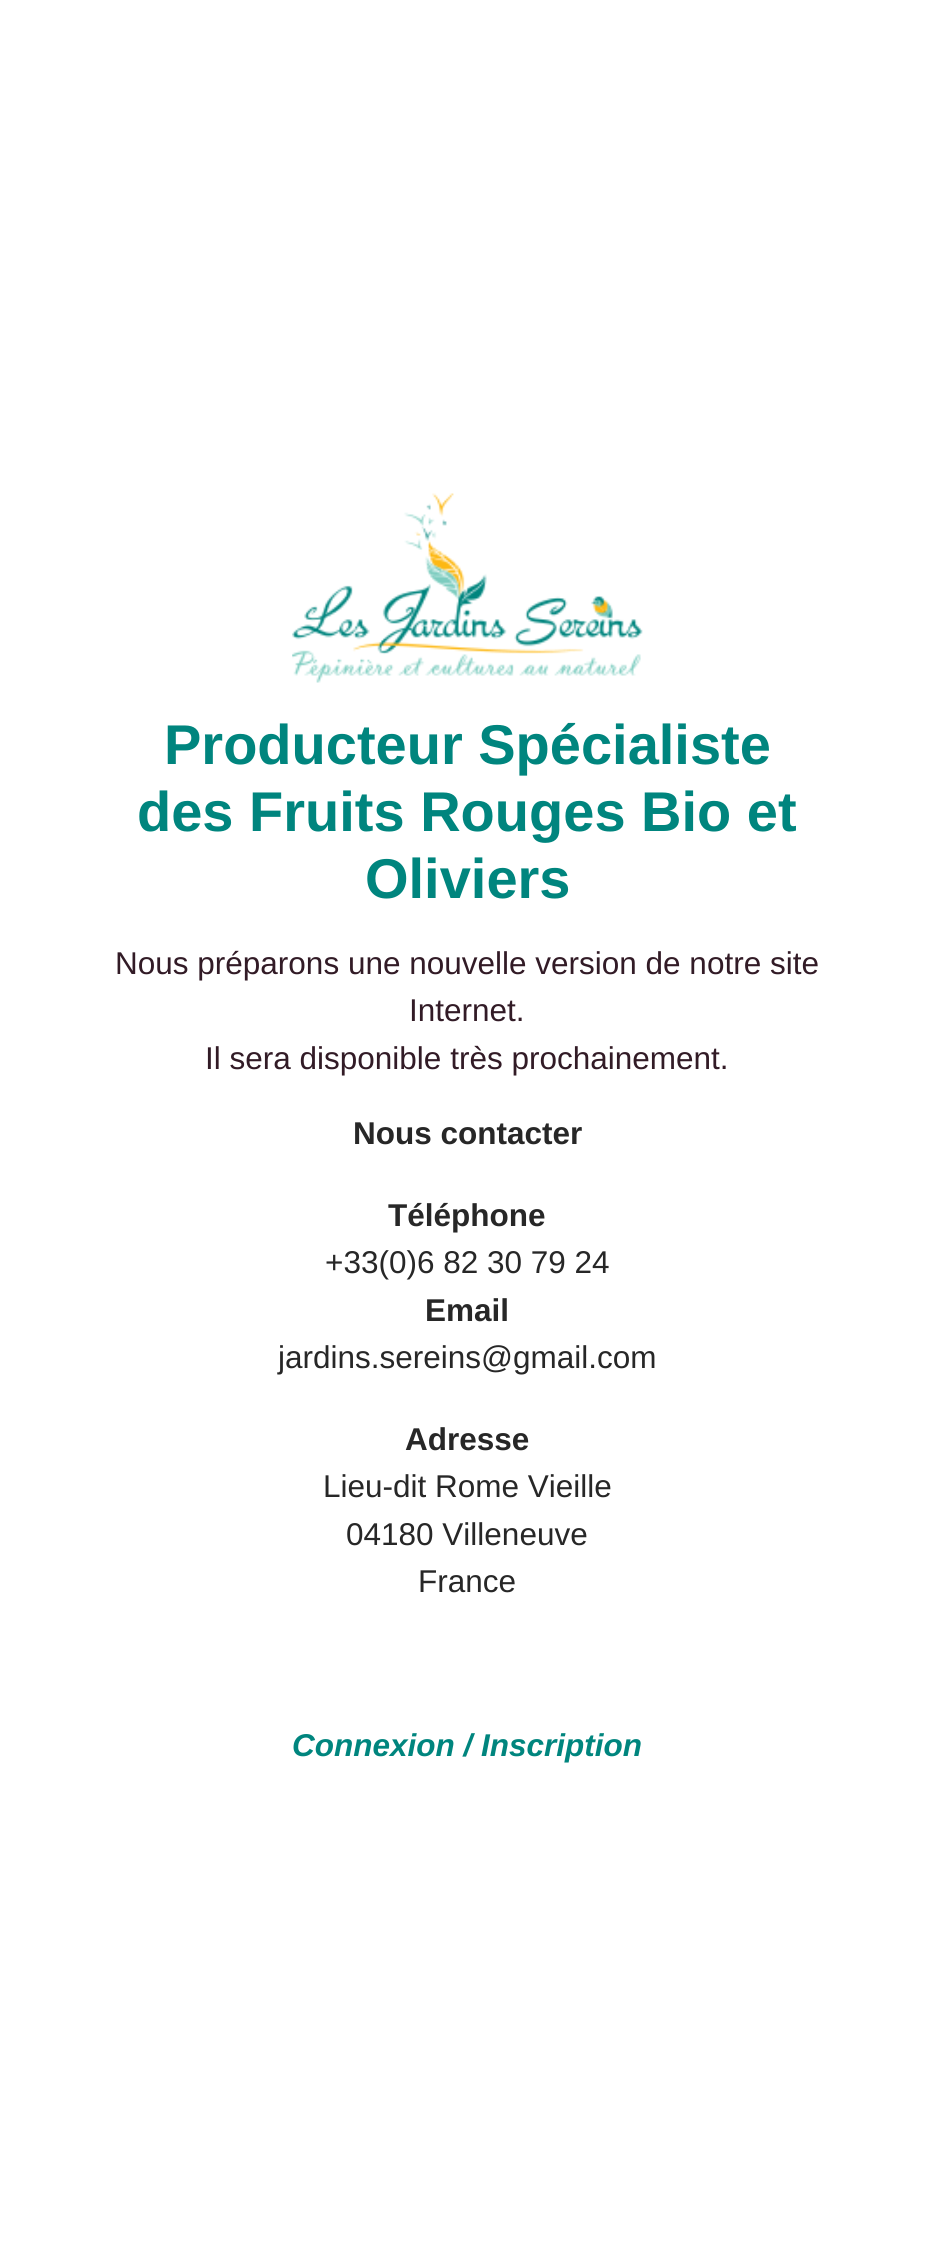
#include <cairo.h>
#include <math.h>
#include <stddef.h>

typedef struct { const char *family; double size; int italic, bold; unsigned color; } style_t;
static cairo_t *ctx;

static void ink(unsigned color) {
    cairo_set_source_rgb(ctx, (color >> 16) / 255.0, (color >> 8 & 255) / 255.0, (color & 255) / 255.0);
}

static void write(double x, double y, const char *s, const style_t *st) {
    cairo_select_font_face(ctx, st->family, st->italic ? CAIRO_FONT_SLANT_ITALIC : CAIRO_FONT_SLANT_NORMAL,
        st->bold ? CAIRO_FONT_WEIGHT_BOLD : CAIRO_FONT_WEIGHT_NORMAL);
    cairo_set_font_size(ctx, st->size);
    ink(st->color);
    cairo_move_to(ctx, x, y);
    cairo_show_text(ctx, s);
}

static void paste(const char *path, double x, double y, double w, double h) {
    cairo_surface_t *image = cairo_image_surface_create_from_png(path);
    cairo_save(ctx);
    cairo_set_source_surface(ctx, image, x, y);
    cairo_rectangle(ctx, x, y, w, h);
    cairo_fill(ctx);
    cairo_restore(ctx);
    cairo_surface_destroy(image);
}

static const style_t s1 = {"Liberation Sans", 56, 0, 1, 0x00857e};
static const style_t s2 = {"Liberation Sans", 31.5, 0, 0, 0x321b26};
static const style_t s3 = {"Liberation Sans", 31.5, 0, 1, 0x272727};
static const style_t s4 = {"Liberation Sans", 31.5, 0, 0, 0x272727};
static const style_t s5 = {"Liberation Sans", 31.5, 1, 1, 0x00857e};

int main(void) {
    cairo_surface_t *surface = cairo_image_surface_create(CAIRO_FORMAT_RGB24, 934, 2263);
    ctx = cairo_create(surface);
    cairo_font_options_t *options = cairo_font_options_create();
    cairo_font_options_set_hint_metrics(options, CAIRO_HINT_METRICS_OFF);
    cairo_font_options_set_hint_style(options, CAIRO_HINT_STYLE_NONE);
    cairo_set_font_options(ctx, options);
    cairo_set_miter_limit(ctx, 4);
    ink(0xffffff);
    cairo_paint(ctx);
    paste("pic1.png", 292, 493, 351, 190);
    write(164, 764, "Producteur Spécialiste", &s1);
    write(137, 831, "des Fruits Rouges Bio et", &s1);
    write(365, 898, "Oliviers", &s1);
    write(115, 974, "Nous préparons une nouvelle version de notre site", &s2);
    write(409, 1021, "Internet.", &s2);
    write(205, 1069, "Il sera disponible très prochainement.", &s2);
    write(353, 1144, "Nous contacter", &s3);
    write(388, 1226, "Téléphone", &s3);
    write(325, 1273, "+33(0)6 82 30 79 24", &s4);
    write(425, 1321, "Email", &s3);
    write(278, 1368, "jardins.sereins@gmail.com", &s4);
    write(405, 1450, "Adresse", &s3);
    write(323, 1497, "Lieu-dit Rome Vieille", &s4);
    write(346, 1545, "04180 Villeneuve", &s4);
    write(418, 1592, "France", &s4);
    write(292, 1756, "Connexion / Inscription", &s5);
    cairo_surface_write_to_png(surface, "screenshot.png");
    cairo_font_options_destroy(options);
    cairo_destroy(ctx);
    cairo_surface_destroy(surface);
    return 0;
}
